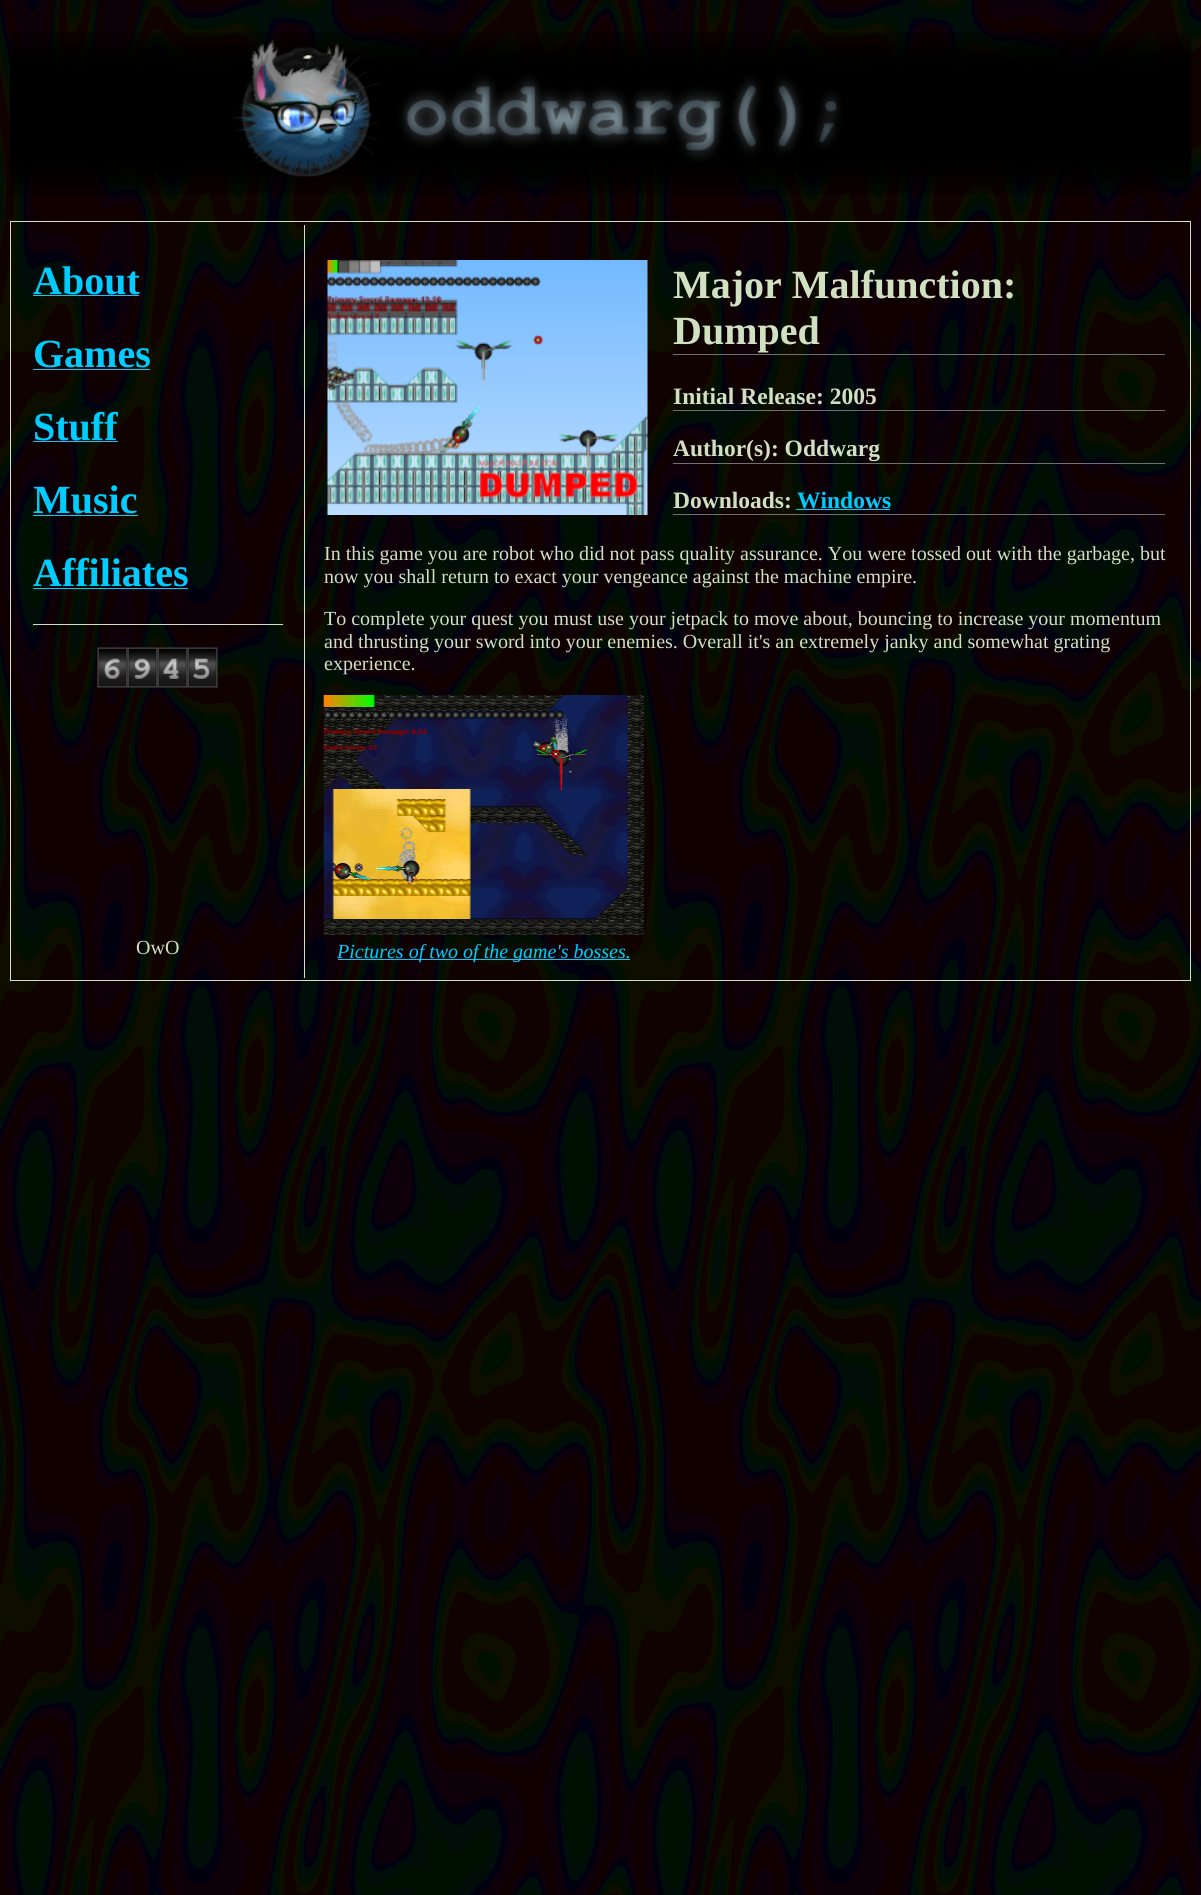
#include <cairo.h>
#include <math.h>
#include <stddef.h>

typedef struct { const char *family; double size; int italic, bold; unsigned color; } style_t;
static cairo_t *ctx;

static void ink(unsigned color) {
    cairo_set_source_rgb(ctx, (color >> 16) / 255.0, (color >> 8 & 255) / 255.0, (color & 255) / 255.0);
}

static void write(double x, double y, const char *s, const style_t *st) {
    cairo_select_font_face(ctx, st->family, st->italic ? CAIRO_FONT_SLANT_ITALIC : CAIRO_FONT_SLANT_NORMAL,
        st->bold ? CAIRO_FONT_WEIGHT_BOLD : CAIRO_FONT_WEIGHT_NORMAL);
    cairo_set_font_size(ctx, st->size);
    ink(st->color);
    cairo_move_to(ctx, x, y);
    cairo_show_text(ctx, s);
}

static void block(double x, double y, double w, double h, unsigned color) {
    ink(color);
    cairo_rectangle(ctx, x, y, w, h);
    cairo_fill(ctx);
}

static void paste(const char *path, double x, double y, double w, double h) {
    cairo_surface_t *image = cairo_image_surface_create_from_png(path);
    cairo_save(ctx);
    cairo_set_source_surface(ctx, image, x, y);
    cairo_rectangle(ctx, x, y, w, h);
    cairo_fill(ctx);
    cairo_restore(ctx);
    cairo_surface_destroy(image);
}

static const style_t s1 = {"Liberation Serif", 40, 0, 1, 0x00ccff};
static const style_t s2 = {"Liberation Serif", 40, 0, 1, 0xd0e0c0};
static const style_t s3 = {"Liberation Serif", 23.5, 0, 1, 0xd0e0c0};
static const style_t s4 = {"Liberation Serif", 23.5, 0, 1, 0x00ccff};
static const style_t s5 = {"Liberation Serif", 20, 0, 0, 0xd0e0c0};
static const style_t s6 = {"Liberation Serif", 20, 1, 0, 0x00ccff};

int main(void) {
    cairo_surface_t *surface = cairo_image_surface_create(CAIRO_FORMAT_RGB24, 1201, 1895);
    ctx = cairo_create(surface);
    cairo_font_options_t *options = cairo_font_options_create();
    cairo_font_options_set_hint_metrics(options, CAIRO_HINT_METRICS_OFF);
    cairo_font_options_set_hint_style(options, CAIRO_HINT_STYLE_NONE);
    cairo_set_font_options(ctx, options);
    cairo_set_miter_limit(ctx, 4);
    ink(0xffffff);
    cairo_paint(ctx);
    paste("pic1.png", 0, 0, 1201, 1895);
    paste("pic2.png", 10, 32, 1182, 163);
    paste("pic3.png", 232, 39, 609, 138);
    cairo_rectangle(ctx, 10.5, 221.5, 1180, 759);
    ink(0xd0e0c0);
    cairo_set_line_width(ctx, 1);
    cairo_stroke(ctx);
    write(33, 294, "About", &s1);
    block(33, 295, 106, 1, 0x00ccff);
    write(33, 367, "Games", &s1);
    block(33, 369, 117, 1, 0x00ccff);
    write(33, 440, "Stuff", &s1);
    block(33, 441, 85, 1, 0x00ccff);
    write(33, 513, "Music", &s1);
    block(33, 515, 105, 1, 0x00ccff);
    write(33, 586, "Affiliates", &s1);
    block(33, 588, 155, 1, 0x00ccff);
    block(33, 624, 250, 1, 0xd0e0c0);
    paste("pic4.png", 97, 647, 31, 41);
    paste("pic5.png", 127, 647, 31, 41);
    paste("pic6.png", 157, 647, 31, 41);
    paste("pic7.png", 187, 647, 31, 41);
    block(304, 225, 1, 753, 0xd0e0c0);
    paste("pic8.png", 327, 260, 321, 255);
    block(673, 354, 492, 1, 0x707070);
    write(673, 298, "Major Malfunction:", &s2);
    write(673, 344, "Dumped", &s2);
    block(673, 410, 492, 1, 0x707070);
    write(673, 404, "Initial Release: 2005", &s3);
    block(673, 463, 492, 1, 0x707070);
    write(673, 456, "Author(s): Oddwarg", &s3);
    block(673, 514, 492, 1, 0x707070);
    write(673, 508, "Downloads:", &s3);
    write(797, 508, "Windows", &s4);
    block(796, 509, 94, 1, 0x00ccff);
    write(324, 560, "In this game you are robot who did not pass quality assurance. You were tossed out with the garbage, but", &s5);
    write(324, 583, "now you shall return to exact your vengeance against the machine empire.", &s5);
    write(324, 625, "To complete your quest you must use your jetpack to move about, bouncing to increase your momentum", &s5);
    write(324, 648, "and thrusting your sword into your enemies. Overall it's an extremely janky and somewhat grating", &s5);
    write(324, 670, "experience.", &s5);
    paste("pic9.png", 323, 695, 321, 240);
    block(338, 959, 292, 1, 0x00ccff);
    write(337, 958, "Pictures of two of the game's bosses.", &s6);
    write(136, 954, "OwO", &s5);
    cairo_surface_write_to_png(surface, "screenshot.png");
    cairo_font_options_destroy(options);
    cairo_destroy(ctx);
    cairo_surface_destroy(surface);
    return 0;
}
